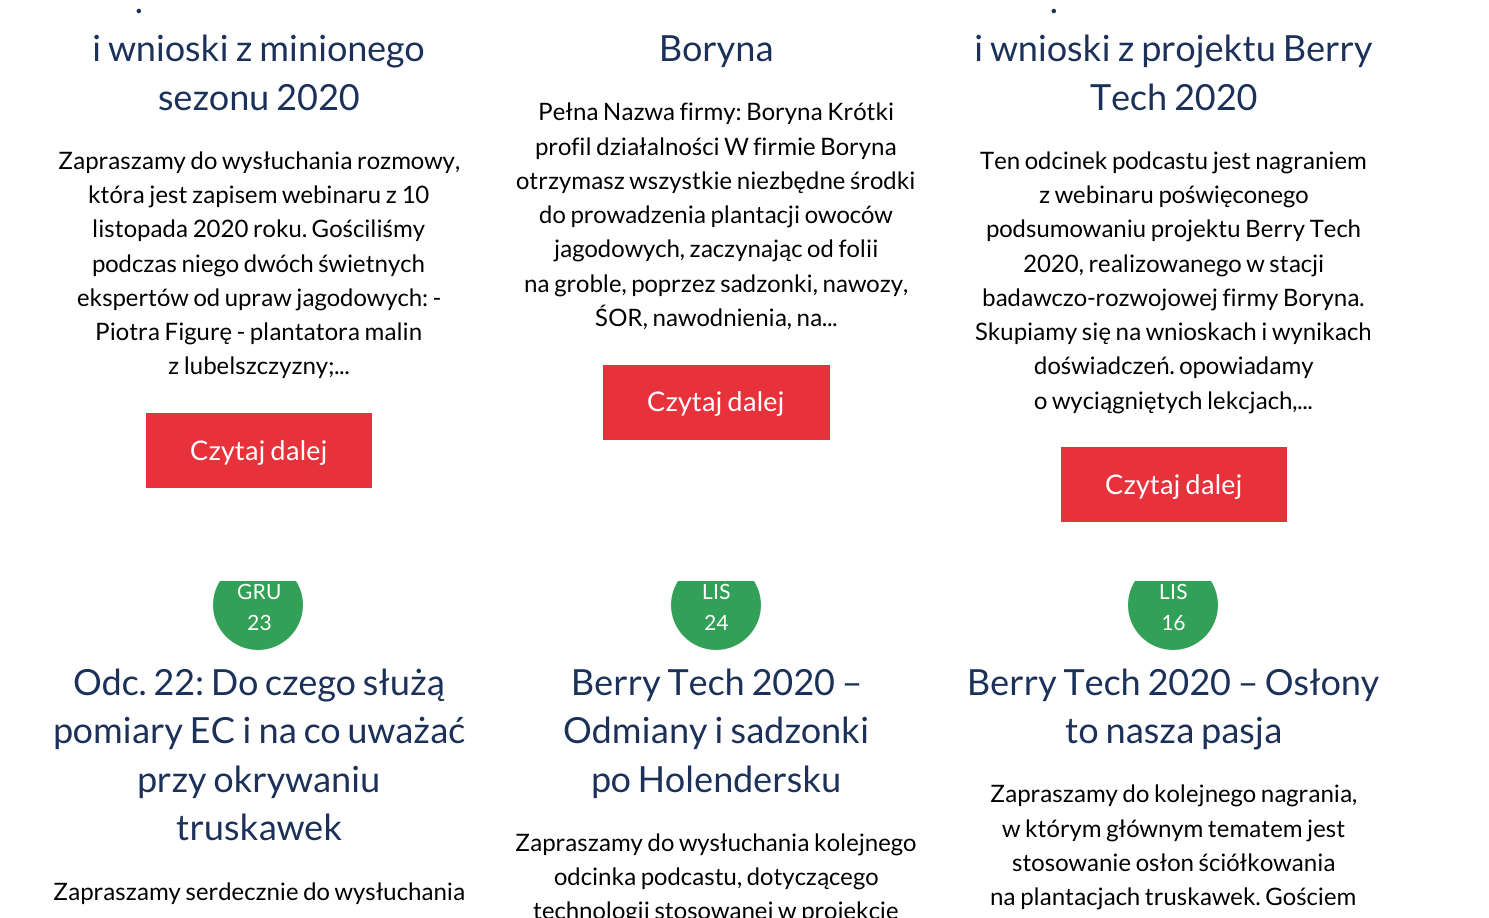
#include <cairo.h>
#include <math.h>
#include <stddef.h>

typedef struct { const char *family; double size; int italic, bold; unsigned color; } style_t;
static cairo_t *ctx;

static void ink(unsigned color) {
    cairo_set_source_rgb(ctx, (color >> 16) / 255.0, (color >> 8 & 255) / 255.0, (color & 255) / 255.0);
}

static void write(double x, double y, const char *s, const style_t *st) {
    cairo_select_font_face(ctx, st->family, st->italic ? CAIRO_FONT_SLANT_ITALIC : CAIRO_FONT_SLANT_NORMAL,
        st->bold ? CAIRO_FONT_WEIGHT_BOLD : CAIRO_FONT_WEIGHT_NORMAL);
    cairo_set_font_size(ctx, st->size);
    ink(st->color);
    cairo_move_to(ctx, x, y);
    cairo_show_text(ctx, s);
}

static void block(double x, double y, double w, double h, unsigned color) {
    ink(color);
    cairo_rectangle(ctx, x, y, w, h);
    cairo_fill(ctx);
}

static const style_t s1 = {"Lato", 36, 0, 0, 0x1b3159};
static const style_t s2 = {"Lato", 24, 0, 0, 0x000000};
static const style_t s3 = {"Lato", 27, 0, 0, 0xffffff};
static const style_t s4 = {"Lato", 21, 0, 0, 0xffffff};

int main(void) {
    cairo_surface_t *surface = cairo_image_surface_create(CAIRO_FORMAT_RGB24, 1489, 918);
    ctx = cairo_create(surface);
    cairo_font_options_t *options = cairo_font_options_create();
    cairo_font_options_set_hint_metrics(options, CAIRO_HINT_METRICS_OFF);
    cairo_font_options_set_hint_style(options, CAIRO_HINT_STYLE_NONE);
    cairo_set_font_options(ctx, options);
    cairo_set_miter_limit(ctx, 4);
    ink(0xffffff);
    cairo_paint(ctx);
    write(135, 13, ".", &s1);
    write(92, 61, "i wnioski z minionego", &s1);
    write(158, 110, "sezonu 2020", &s1);
    write(58, 169, "Zapraszamy do wysłuchania rozmowy,", &s2);
    write(88, 203, "która jest zapisem webinaru z 10", &s2);
    write(92, 237, "listopada 2020 roku. Gościliśmy", &s2);
    write(92, 272, "podczas niego dwóch świetnych", &s2);
    write(77, 306, "ekspertów od upraw jagodowych: -", &s2);
    write(95, 340, "Piotra Figurę - plantatora malin", &s2);
    write(168, 374, "z lubelszczyzny;...", &s2);
    block(146, 413, 226, 75, 0xe8323b);
    write(190, 460, "Czytaj dalej", &s3);
    write(659, 61, "Boryna", &s1);
    write(538, 120, "Pełna Nazwa firmy: Boryna Krótki", &s2);
    write(535, 155, "profil działalności W firmie Boryna", &s2);
    write(516, 189, "otrzymasz wszystkie niezbędne środki", &s2);
    write(539, 223, "do prowadzenia plantacji owoców", &s2);
    write(554, 257, "jagodowych, zaczynając od folii", &s2);
    write(524, 292, "na groble, poprzez sadzonki, nawozy,", &s2);
    write(595, 326, "ŚOR, nawodnienia, na...", &s2);
    block(603, 365, 227, 75, 0xe8323b);
    write(647, 411, "Czytaj dalej", &s3);
    write(1050, 13, ".", &s1);
    write(974, 61, "i wnioski z projektu Berry", &s1);
    write(1090, 110, "Tech 2020", &s1);
    write(980, 169, "Ten odcinek podcastu jest nagraniem", &s2);
    write(1039, 203, "z webinaru poświęconego", &s2);
    write(986, 237, "podsumowaniu projektu Berry Tech", &s2);
    write(1023, 272, "2020, realizowanego w stacji", &s2);
    write(982, 306, "badawczo-rozwojowej firmy Boryna.", &s2);
    write(975, 340, "Skupiamy się na wnioskach i wynikach", &s2);
    write(1034, 374, "doświadczeń. opowiadamy", &s2);
    write(1034, 409, "o wyciągniętych lekcjach,...", &s2);
    block(1061, 447, 226, 75, 0xe8323b);
    write(1105, 494, "Czytaj dalej", &s3);
    cairo_save(ctx);
    cairo_rectangle(ctx, 30, 581, 458, 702);
    cairo_clip(ctx);
    ink(0x32a056);
    cairo_arc(ctx, 258, 605, 45, 0, 2 * M_PI);
    cairo_fill(ctx);
    cairo_restore(ctx);
    write(237, 599, "GRU", &s4);
    write(247, 630, "23", &s4);
    write(73, 695, "Odc. 22: Do czego służą", &s1);
    write(53, 743, "pomiary EC i na co uważać", &s1);
    write(137, 792, "przy okrywaniu", &s1);
    write(176, 840, "truskawek", &s1);
    write(53, 900, "Zapraszamy serdecznie do wysłuchania", &s2);
    cairo_save(ctx);
    cairo_rectangle(ctx, 488, 581, 457, 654);
    cairo_clip(ctx);
    ink(0x32a056);
    cairo_arc(ctx, 716, 605, 45, 0, 2 * M_PI);
    cairo_fill(ctx);
    cairo_restore(ctx);
    write(702, 599, "LIS", &s4);
    write(704, 630, "24", &s4);
    write(571, 695, "Berry Tech 2020 –", &s1);
    write(563, 743, "Odmiany i sadzonki", &s1);
    write(591, 792, "po Holendersku", &s1);
    write(515, 851, "Zapraszamy do wysłuchania kolejnego", &s2);
    write(554, 885, "odcinka podcastu, dotyczącego", &s2);
    write(533, 919, "technologii stosowanej w projekcie", &s2);
    cairo_save(ctx);
    cairo_rectangle(ctx, 945, 581, 458, 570);
    cairo_clip(ctx);
    ink(0x32a056);
    cairo_arc(ctx, 1173, 605, 45, 0, 2 * M_PI);
    cairo_fill(ctx);
    cairo_restore(ctx);
    write(1159, 599, "LIS", &s4);
    write(1161, 630, "16", &s4);
    write(967, 695, "Berry Tech 2020 – Osłony", &s1);
    write(1065, 743, "to nasza pasja", &s1);
    write(990, 802, "Zapraszamy do kolejnego nagrania,", &s2);
    write(1002, 837, "w którym głównym tematem jest", &s2);
    write(1012, 871, "stosowanie osłon ściółkowania", &s2);
    write(990, 905, "na plantacjach truskawek. Gościem", &s2);
    cairo_surface_write_to_png(surface, "screenshot.png");
    cairo_font_options_destroy(options);
    cairo_destroy(ctx);
    cairo_surface_destroy(surface);
    return 0;
}
